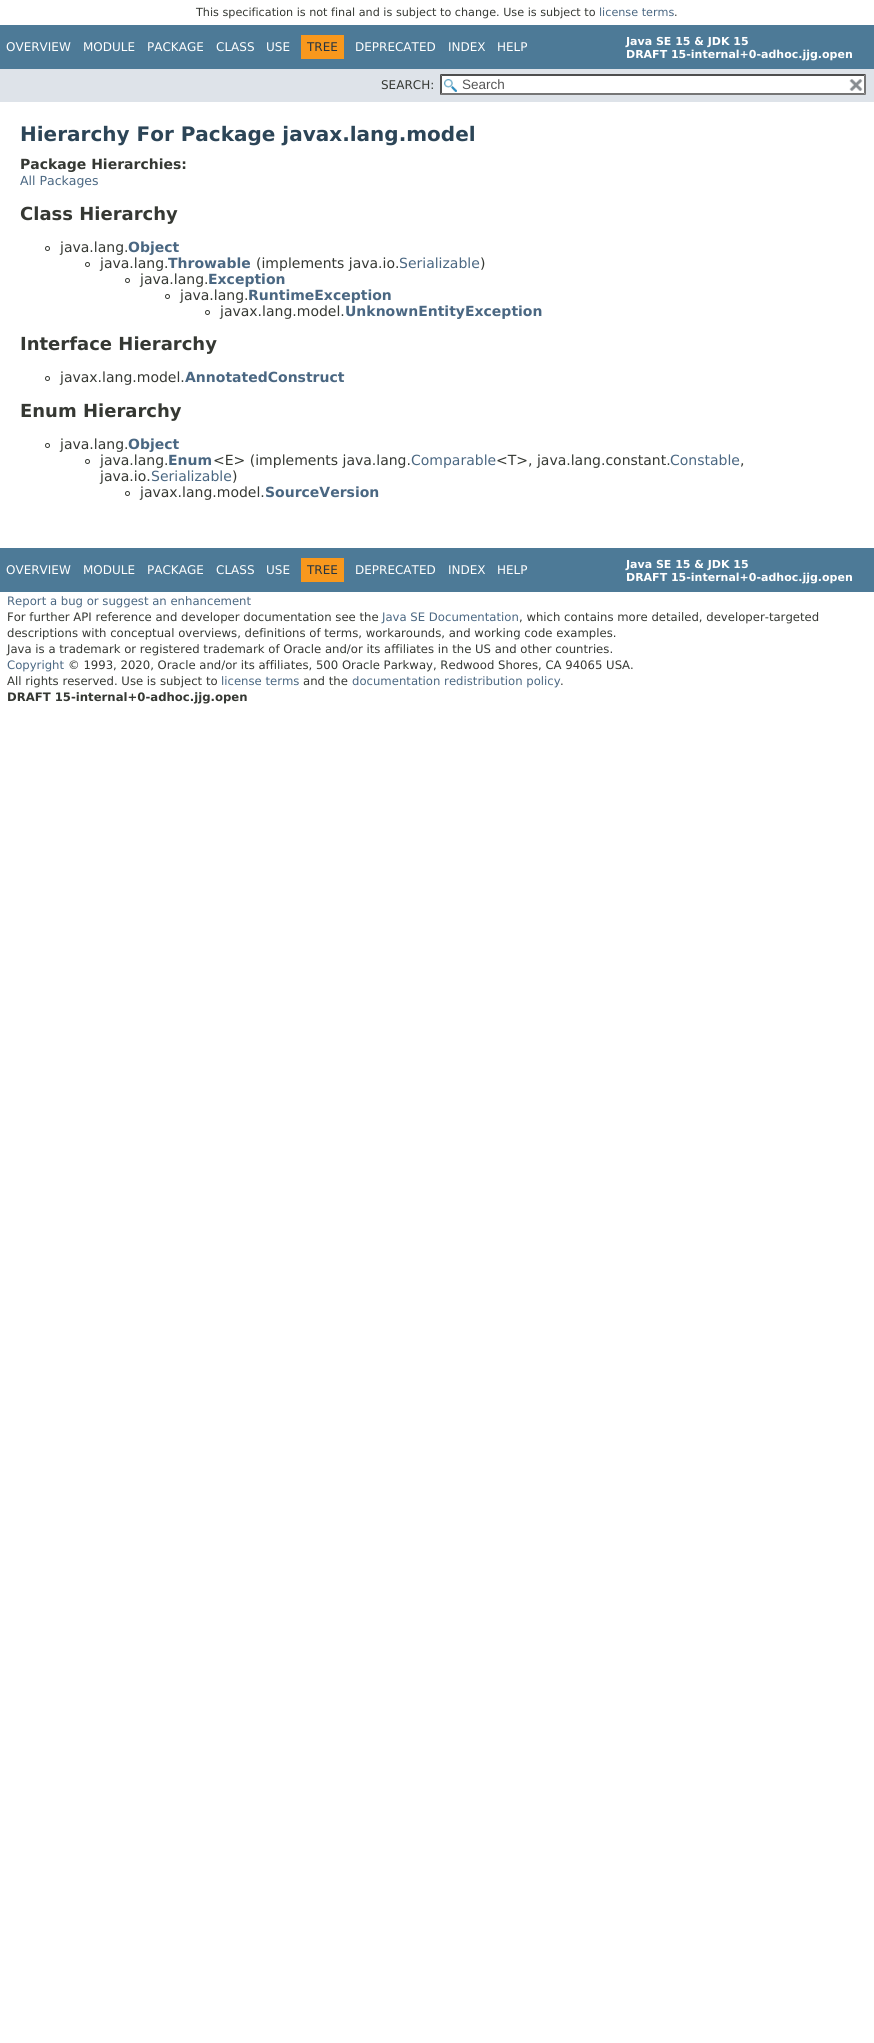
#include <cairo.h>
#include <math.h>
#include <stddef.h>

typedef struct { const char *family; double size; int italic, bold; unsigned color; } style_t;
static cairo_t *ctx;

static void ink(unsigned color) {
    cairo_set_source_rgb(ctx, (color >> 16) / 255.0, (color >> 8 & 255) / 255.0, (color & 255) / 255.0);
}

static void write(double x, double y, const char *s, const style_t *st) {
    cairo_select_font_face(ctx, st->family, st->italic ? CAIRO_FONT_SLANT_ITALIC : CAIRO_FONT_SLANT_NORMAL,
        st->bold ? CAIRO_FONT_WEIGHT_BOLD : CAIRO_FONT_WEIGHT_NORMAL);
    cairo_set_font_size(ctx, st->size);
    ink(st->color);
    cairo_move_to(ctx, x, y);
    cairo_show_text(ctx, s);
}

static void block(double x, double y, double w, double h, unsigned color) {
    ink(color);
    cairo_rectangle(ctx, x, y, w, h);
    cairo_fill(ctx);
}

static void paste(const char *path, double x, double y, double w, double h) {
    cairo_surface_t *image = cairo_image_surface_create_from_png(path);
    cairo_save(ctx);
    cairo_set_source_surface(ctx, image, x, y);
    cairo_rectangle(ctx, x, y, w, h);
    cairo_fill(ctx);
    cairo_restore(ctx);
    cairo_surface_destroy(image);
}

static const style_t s1 = {"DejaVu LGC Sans", 11.2, 0, 0, 0x353833};
static const style_t s2 = {"DejaVu LGC Sans", 11.2, 0, 0, 0x4a6782};
static const style_t s3 = {"DejaVu LGC Sans", 12, 0, 0, 0xffffff};
static const style_t s4 = {"DejaVu LGC Sans", 12, 0, 0, 0x253441};
static const style_t s5 = {"DejaVu LGC Sans", 11, 0, 1, 0xffffff};
static const style_t s6 = {"DejaVu LGC Sans", 12, 0, 0, 0x353833};
static const style_t s7 = {"Liberation Sans", 13.5, 0, 0, 0x545454};
static const style_t s8 = {"DejaVu LGC Sans", 20, 0, 1, 0x2c4557};
static const style_t s9 = {"DejaVu LGC Sans", 14, 0, 1, 0x353833};
static const style_t s10 = {"DejaVu LGC Sans", 12.5, 0, 0, 0x4a6782};
static const style_t s11 = {"DejaVu LGC Sans", 18, 0, 1, 0x353833};
static const style_t s12 = {"DejaVu LGC Sans", 14, 0, 0, 0x353833};
static const style_t s13 = {"DejaVu LGC Sans", 14, 0, 1, 0x4a6782};
static const style_t s14 = {"DejaVu LGC Sans", 14, 0, 0, 0x4a6782};
static const style_t s15 = {"DejaVu LGC Sans", 11.67, 0, 0, 0x4a6782};
static const style_t s16 = {"DejaVu LGC Sans", 11.67, 0, 0, 0x353833};
static const style_t s17 = {"DejaVu LGC Sans", 11.67, 0, 1, 0x353833};

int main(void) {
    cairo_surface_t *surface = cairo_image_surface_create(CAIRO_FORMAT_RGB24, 874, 2043);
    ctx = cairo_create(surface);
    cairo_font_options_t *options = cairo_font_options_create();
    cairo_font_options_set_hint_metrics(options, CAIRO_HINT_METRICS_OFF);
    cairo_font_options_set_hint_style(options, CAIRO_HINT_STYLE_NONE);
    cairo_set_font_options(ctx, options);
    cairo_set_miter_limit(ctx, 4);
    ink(0xffffff);
    cairo_paint(ctx);
    write(196, 16, "This specification is not final and is subject to change. Use is subject to", &s1);
    write(599, 16, "license terms", &s2);
    write(674, 16, ".", &s1);
    block(0, 25, 874, 44, 0x4d7a97);
    write(6, 51, "OVERVIEW", &s3);
    write(83, 51, "MODULE", &s3);
    write(147, 51, "PACKAGE", &s3);
    write(216, 51, "CLASS", &s3);
    write(266, 51, "USE", &s3);
    block(301, 35, 43, 24, 0xf8981d);
    write(307, 51, "TREE", &s4);
    write(355, 51, "DEPRECATED", &s3);
    write(448, 51, "INDEX", &s3);
    write(497, 51, "HELP", &s3);
    write(626, 45, "Java SE 15 & JDK 15", &s5);
    write(626, 58, "DRAFT 15-internal+0-adhoc.jjg.open", &s5);
    block(0, 69, 874, 33, 0xdee3e9);
    write(381, 89, "SEARCH:", &s6);
    block(440, 74, 426, 21, 0xffffff);
    paste("pic1.png", 444, 79, 13, 13);
    ink(0x4f4f4f);
    cairo_new_path(ctx);
    cairo_move_to(ctx, 440, 74);
    cairo_line_to(ctx, 866, 74);
    cairo_line_to(ctx, 864, 76);
    cairo_line_to(ctx, 442, 76);
    cairo_close_path(ctx);
    cairo_fill(ctx);
    ink(0x767676);
    cairo_new_path(ctx);
    cairo_move_to(ctx, 866, 74);
    cairo_line_to(ctx, 866, 95);
    cairo_line_to(ctx, 864, 93);
    cairo_line_to(ctx, 864, 76);
    cairo_close_path(ctx);
    cairo_fill(ctx);
    cairo_new_path(ctx);
    cairo_move_to(ctx, 866, 95);
    cairo_line_to(ctx, 440, 95);
    cairo_line_to(ctx, 442, 93);
    cairo_line_to(ctx, 864, 93);
    cairo_close_path(ctx);
    cairo_fill(ctx);
    ink(0x4f4f4f);
    cairo_new_path(ctx);
    cairo_move_to(ctx, 440, 95);
    cairo_line_to(ctx, 440, 74);
    cairo_line_to(ctx, 442, 76);
    cairo_line_to(ctx, 442, 93);
    cairo_close_path(ctx);
    cairo_fill(ctx);
    write(462, 89, "Search", &s7);
    paste("pic2.png", 849, 79, 14, 12);
    write(20, 141, "Hierarchy For Package javax.lang.model", &s8);
    write(20, 169, "Package Hierarchies:", &s9);
    write(20, 185, "All Packages", &s10);
    write(20, 220, "Class Hierarchy", &s11);
    cairo_new_path(ctx);
    cairo_arc(ctx, 47.5, 248.5, 2, 0, 2 * M_PI);
    cairo_set_line_width(ctx, 1);
    cairo_stroke(ctx);
    write(60, 252, "java.lang.", &s12);
    write(128, 252, "Object", &s13);
    cairo_new_path(ctx);
    cairo_arc(ctx, 87.5, 264.5, 2, 0, 2 * M_PI);
    ink(0x353833);
    cairo_stroke(ctx);
    write(100, 268, "java.lang.", &s12);
    write(168, 268, "Throwable", &s13);
    write(256, 268, "(implements java.io.", &s12);
    write(399, 268, "Serializable", &s14);
    write(480, 268, ")", &s12);
    cairo_new_path(ctx);
    cairo_arc(ctx, 127.5, 280.5, 2, 0, 2 * M_PI);
    cairo_stroke(ctx);
    write(140, 284, "java.lang.", &s12);
    write(208, 284, "Exception", &s13);
    cairo_new_path(ctx);
    cairo_arc(ctx, 167.5, 296.5, 2, 0, 2 * M_PI);
    ink(0x353833);
    cairo_stroke(ctx);
    write(180, 300, "java.lang.", &s12);
    write(248, 300, "RuntimeException", &s13);
    cairo_new_path(ctx);
    cairo_arc(ctx, 207.5, 312.5, 2, 0, 2 * M_PI);
    ink(0x353833);
    cairo_stroke(ctx);
    write(220, 316, "javax.lang.model.", &s12);
    write(345, 316, "UnknownEntityException", &s13);
    write(20, 350, "Interface Hierarchy", &s11);
    cairo_new_path(ctx);
    cairo_arc(ctx, 47.5, 378.5, 2, 0, 2 * M_PI);
    cairo_stroke(ctx);
    write(60, 382, "javax.lang.model.", &s12);
    write(185, 382, "AnnotatedConstruct", &s13);
    write(20, 417, "Enum Hierarchy", &s11);
    cairo_new_path(ctx);
    cairo_arc(ctx, 47.5, 445.5, 2, 0, 2 * M_PI);
    cairo_stroke(ctx);
    write(60, 449, "java.lang.", &s12);
    write(128, 449, "Object", &s13);
    cairo_new_path(ctx);
    cairo_arc(ctx, 87.5, 461.5, 2, 0, 2 * M_PI);
    ink(0x353833);
    cairo_stroke(ctx);
    write(100, 465, "java.lang.", &s12);
    write(168, 465, "Enum", &s13);
    write(213, 465, "<E> (implements java.lang.", &s12);
    write(411, 465, "Comparable", &s14);
    write(496, 465, "<T>, java.lang.constant.", &s12);
    write(670, 465, "Constable", &s14);
    write(740, 465, ",", &s12);
    write(100, 481, "java.io.", &s12);
    write(151, 481, "Serializable", &s14);
    write(232, 481, ")", &s12);
    cairo_new_path(ctx);
    cairo_arc(ctx, 127.5, 493.5, 2, 0, 2 * M_PI);
    cairo_stroke(ctx);
    write(140, 497, "javax.lang.model.", &s12);
    write(265, 497, "SourceVersion", &s13);
    block(0, 548, 874, 44, 0x4d7a97);
    write(6, 574, "OVERVIEW", &s3);
    write(83, 574, "MODULE", &s3);
    write(147, 574, "PACKAGE", &s3);
    write(216, 574, "CLASS", &s3);
    write(266, 574, "USE", &s3);
    block(301, 558, 43, 24, 0xf8981d);
    write(307, 574, "TREE", &s4);
    write(355, 574, "DEPRECATED", &s3);
    write(448, 574, "INDEX", &s3);
    write(497, 574, "HELP", &s3);
    write(626, 568, "Java SE 15 & JDK 15", &s5);
    write(626, 581, "DRAFT 15-internal+0-adhoc.jjg.open", &s5);
    write(7, 605, "Report a bug or suggest an enhancement", &s15);
    write(7, 621, "For further API reference and developer documentation see the", &s16);
    write(382, 621, "Java SE Documentation", &s15);
    write(519, 621, ", which contains more detailed, developer-targeted", &s16);
    write(7, 637, "descriptions with conceptual overviews, definitions of terms, workarounds, and working code examples.", &s16);
    write(7, 653, "Java is a trademark or registered trademark of Oracle and/or its affiliates in the US and other countries.", &s16);
    write(7, 669, "Copyright", &s15);
    write(68, 669, "© 1993, 2020, Oracle and/or its affiliates, 500 Oracle Parkway, Redwood Shores, CA 94065 USA.", &s16);
    write(7, 685, "All rights reserved. Use is subject to", &s16);
    write(221, 685, "license terms", &s15);
    write(303, 685, "and the", &s16);
    write(352, 685, "documentation redistribution policy", &s15);
    write(560, 685, ".", &s16);
    write(7, 701, "DRAFT 15-internal+0-adhoc.jjg.open", &s17);
    cairo_surface_write_to_png(surface, "screenshot.png");
    cairo_font_options_destroy(options);
    cairo_destroy(ctx);
    cairo_surface_destroy(surface);
    return 0;
}
